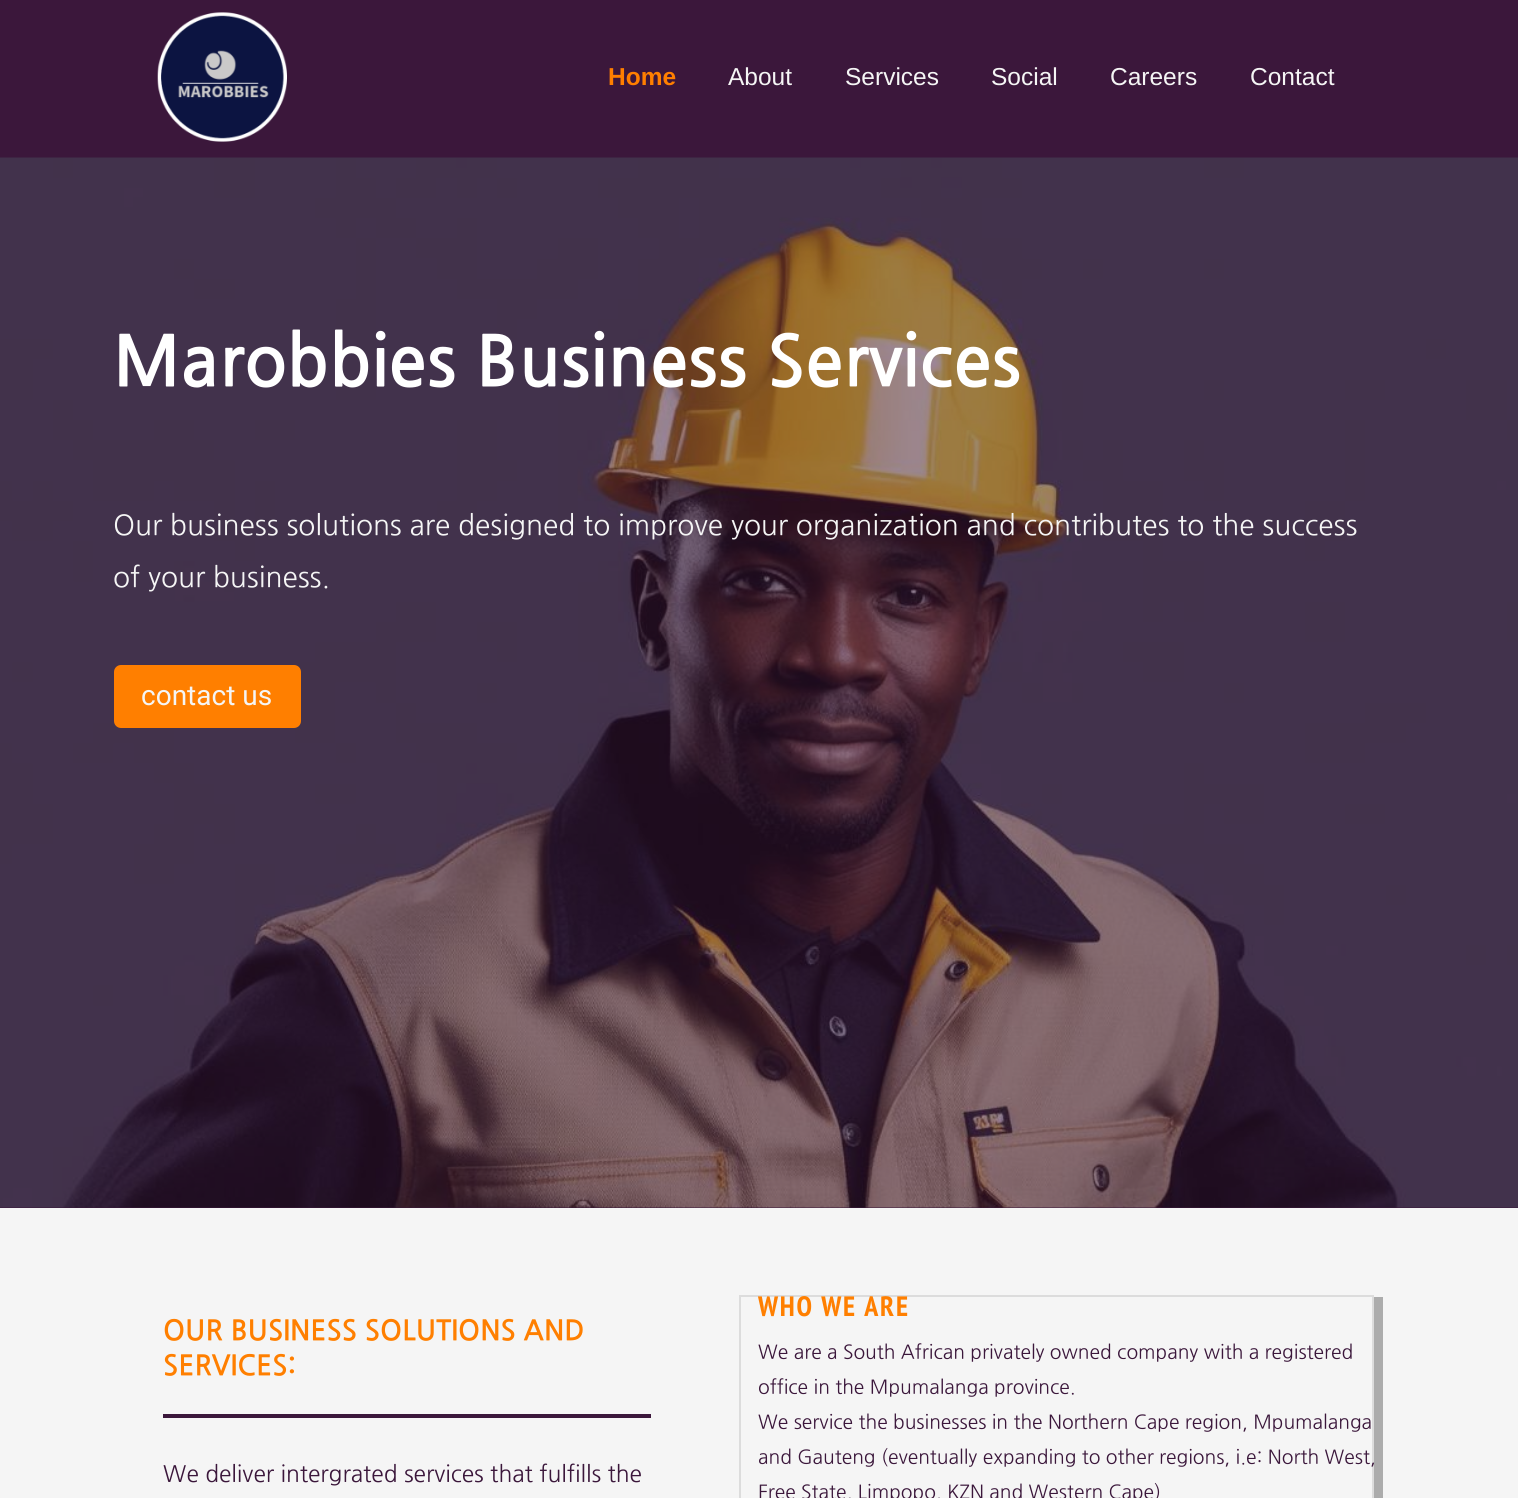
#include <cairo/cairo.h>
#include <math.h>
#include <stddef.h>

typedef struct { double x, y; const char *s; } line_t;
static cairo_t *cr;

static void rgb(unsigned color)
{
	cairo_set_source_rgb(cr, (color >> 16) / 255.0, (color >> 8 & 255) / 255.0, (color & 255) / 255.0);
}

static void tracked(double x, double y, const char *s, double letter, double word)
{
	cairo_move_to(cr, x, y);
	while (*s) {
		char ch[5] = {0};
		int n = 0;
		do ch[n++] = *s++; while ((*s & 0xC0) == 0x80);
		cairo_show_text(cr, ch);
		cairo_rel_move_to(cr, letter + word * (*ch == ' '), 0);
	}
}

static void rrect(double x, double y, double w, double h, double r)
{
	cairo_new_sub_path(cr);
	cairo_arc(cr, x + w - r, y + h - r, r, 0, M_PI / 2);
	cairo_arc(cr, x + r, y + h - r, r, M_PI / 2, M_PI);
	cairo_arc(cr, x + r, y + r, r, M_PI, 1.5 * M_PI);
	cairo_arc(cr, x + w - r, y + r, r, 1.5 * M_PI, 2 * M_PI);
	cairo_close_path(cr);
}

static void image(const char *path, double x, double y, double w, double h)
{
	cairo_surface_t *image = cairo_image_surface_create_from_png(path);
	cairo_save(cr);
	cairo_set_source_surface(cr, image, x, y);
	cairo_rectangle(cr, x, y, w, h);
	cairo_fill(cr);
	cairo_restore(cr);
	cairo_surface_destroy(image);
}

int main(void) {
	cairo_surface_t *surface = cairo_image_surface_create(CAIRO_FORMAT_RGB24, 1518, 1498);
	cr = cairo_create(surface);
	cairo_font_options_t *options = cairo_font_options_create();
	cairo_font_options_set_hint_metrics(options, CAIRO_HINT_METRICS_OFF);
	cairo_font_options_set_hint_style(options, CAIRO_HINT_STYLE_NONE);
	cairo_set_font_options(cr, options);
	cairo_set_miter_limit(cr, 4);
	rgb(0x3b173b);
	cairo_paint(cr);
	image("img/1.png", 157, 12, 130, 130);
	image("img/2.png", 0, 157, 1518, 1051);
	rgb(0xff7f00);
	rrect(114, 665, 187, 63, 7);
	cairo_fill(cr);
	rgb(0xf5f5f5);
	cairo_rectangle(cr, 0, 1208, 1518, 290);
	cairo_fill(cr);
	rgb(0x3b173b);
	cairo_rectangle(cr, 163, 1414, 488, 4);
	cairo_fill(cr);
	rgb(0xacacac);
	cairo_new_path(cr);
	cairo_move_to(cr, 740, 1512);
	cairo_line_to(cr, 740, 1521);
	cairo_line_to(cr, 1383, 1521);
	cairo_line_to(cr, 1383, 1297);
	cairo_line_to(cr, 1374, 1297);
	cairo_line_to(cr, 1374, 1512);
	cairo_close_path(cr);
	cairo_fill(cr);
	cairo_rectangle(cr, 740, 1296, 633, 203);
	rgb(0xdcdcdc);
	cairo_stroke(cr);
	cairo_select_font_face(cr, "Liberation Sans", CAIRO_FONT_SLANT_NORMAL, CAIRO_FONT_WEIGHT_BOLD);
	cairo_set_font_size(cr, 24.5);
	rgb(0xff7f00);
	cairo_move_to(cr, 608, 85);
	cairo_show_text(cr, "Home");
	cairo_select_font_face(cr, "Liberation Sans", CAIRO_FONT_SLANT_NORMAL, CAIRO_FONT_WEIGHT_NORMAL);
	rgb(0xf5f5f5);
	{
		static const line_t items[] = {
			{728, 85, "About"},
			{845, 85, "Services"},
			{991, 85, "Social"},
			{1110, 85, "Careers"},
			{1250, 85, "Contact"},
		};
		for (size_t i = 0; i < sizeof items / sizeof *items; i++) {
			cairo_move_to(cr, items[i].x, items[i].y);
			cairo_show_text(cr, items[i].s);
		}
	}
	cairo_select_font_face(cr, "NanumGothic", CAIRO_FONT_SLANT_NORMAL, CAIRO_FONT_WEIGHT_BOLD);
	cairo_set_font_size(cr, 70);
	rgb(0xffffff);
	cairo_move_to(cr, 113, 383);
	cairo_show_text(cr, "Marobbies Business Services");
	cairo_select_font_face(cr, "NanumGothic", CAIRO_FONT_SLANT_NORMAL, CAIRO_FONT_WEIGHT_NORMAL);
	cairo_set_font_size(cr, 28);
	rgb(0xf5f5f5);
	cairo_move_to(cr, 113, 534);
	cairo_show_text(cr, "Our business solutions are designed to improve your organization and contributes to the success");
	cairo_move_to(cr, 113, 586);
	cairo_show_text(cr, "of your business.");
	cairo_select_font_face(cr, "Roboto", CAIRO_FONT_SLANT_NORMAL, CAIRO_FONT_WEIGHT_NORMAL);
	cairo_move_to(cr, 141, 705);
	cairo_show_text(cr, "contact us");
	cairo_select_font_face(cr, "NanumGothic", CAIRO_FONT_SLANT_NORMAL, CAIRO_FONT_WEIGHT_BOLD);
	rgb(0xff7f00);
	cairo_move_to(cr, 163, 1339);
	cairo_show_text(cr, "OUR BUSINESS SOLUTIONS AND");
	cairo_move_to(cr, 163, 1374);
	cairo_show_text(cr, "SERVICES:");
	cairo_select_font_face(cr, "NanumGothic", CAIRO_FONT_SLANT_NORMAL, CAIRO_FONT_WEIGHT_NORMAL);
	cairo_set_font_size(cr, 22.75);
	rgb(0x3b173b);
	cairo_move_to(cr, 163, 1481);
	cairo_show_text(cr, "We deliver intergrated services that fulfills the");
	cairo_select_font_face(cr, "PT Sans Narrow", CAIRO_FONT_SLANT_NORMAL, CAIRO_FONT_WEIGHT_BOLD);
	cairo_set_font_size(cr, 28);
	rgb(0xff7f00);
	tracked(758, 1316, "WHO WE ARE", 1.75, 0);
	cairo_select_font_face(cr, "NanumGothic", CAIRO_FONT_SLANT_NORMAL, CAIRO_FONT_WEIGHT_NORMAL);
	cairo_set_font_size(cr, 19.25);
	rgb(0x3b173b);
	{
		static const line_t items[] = {
			{758, 1358, "We are a South African privately owned company with a registered"},
			{758, 1393, "office in the Mpumalanga province."},
			{758, 1428, "We service the businesses in the Northern Cape region, Mpumalanga"},
			{758, 1463, "and Gauteng (eventually expanding to other regions, i.e: North West,"},
			{758, 1498, "Free State, Limpopo, KZN and Western Cape)"},
		};
		for (size_t i = 0; i < sizeof items / sizeof *items; i++) {
			cairo_move_to(cr, items[i].x, items[i].y);
			cairo_show_text(cr, items[i].s);
		}
	}
	cairo_surface_write_to_png(surface, "page.png");
	cairo_font_options_destroy(options);
	cairo_destroy(cr);
	cairo_surface_destroy(surface);
	return 0;
}
